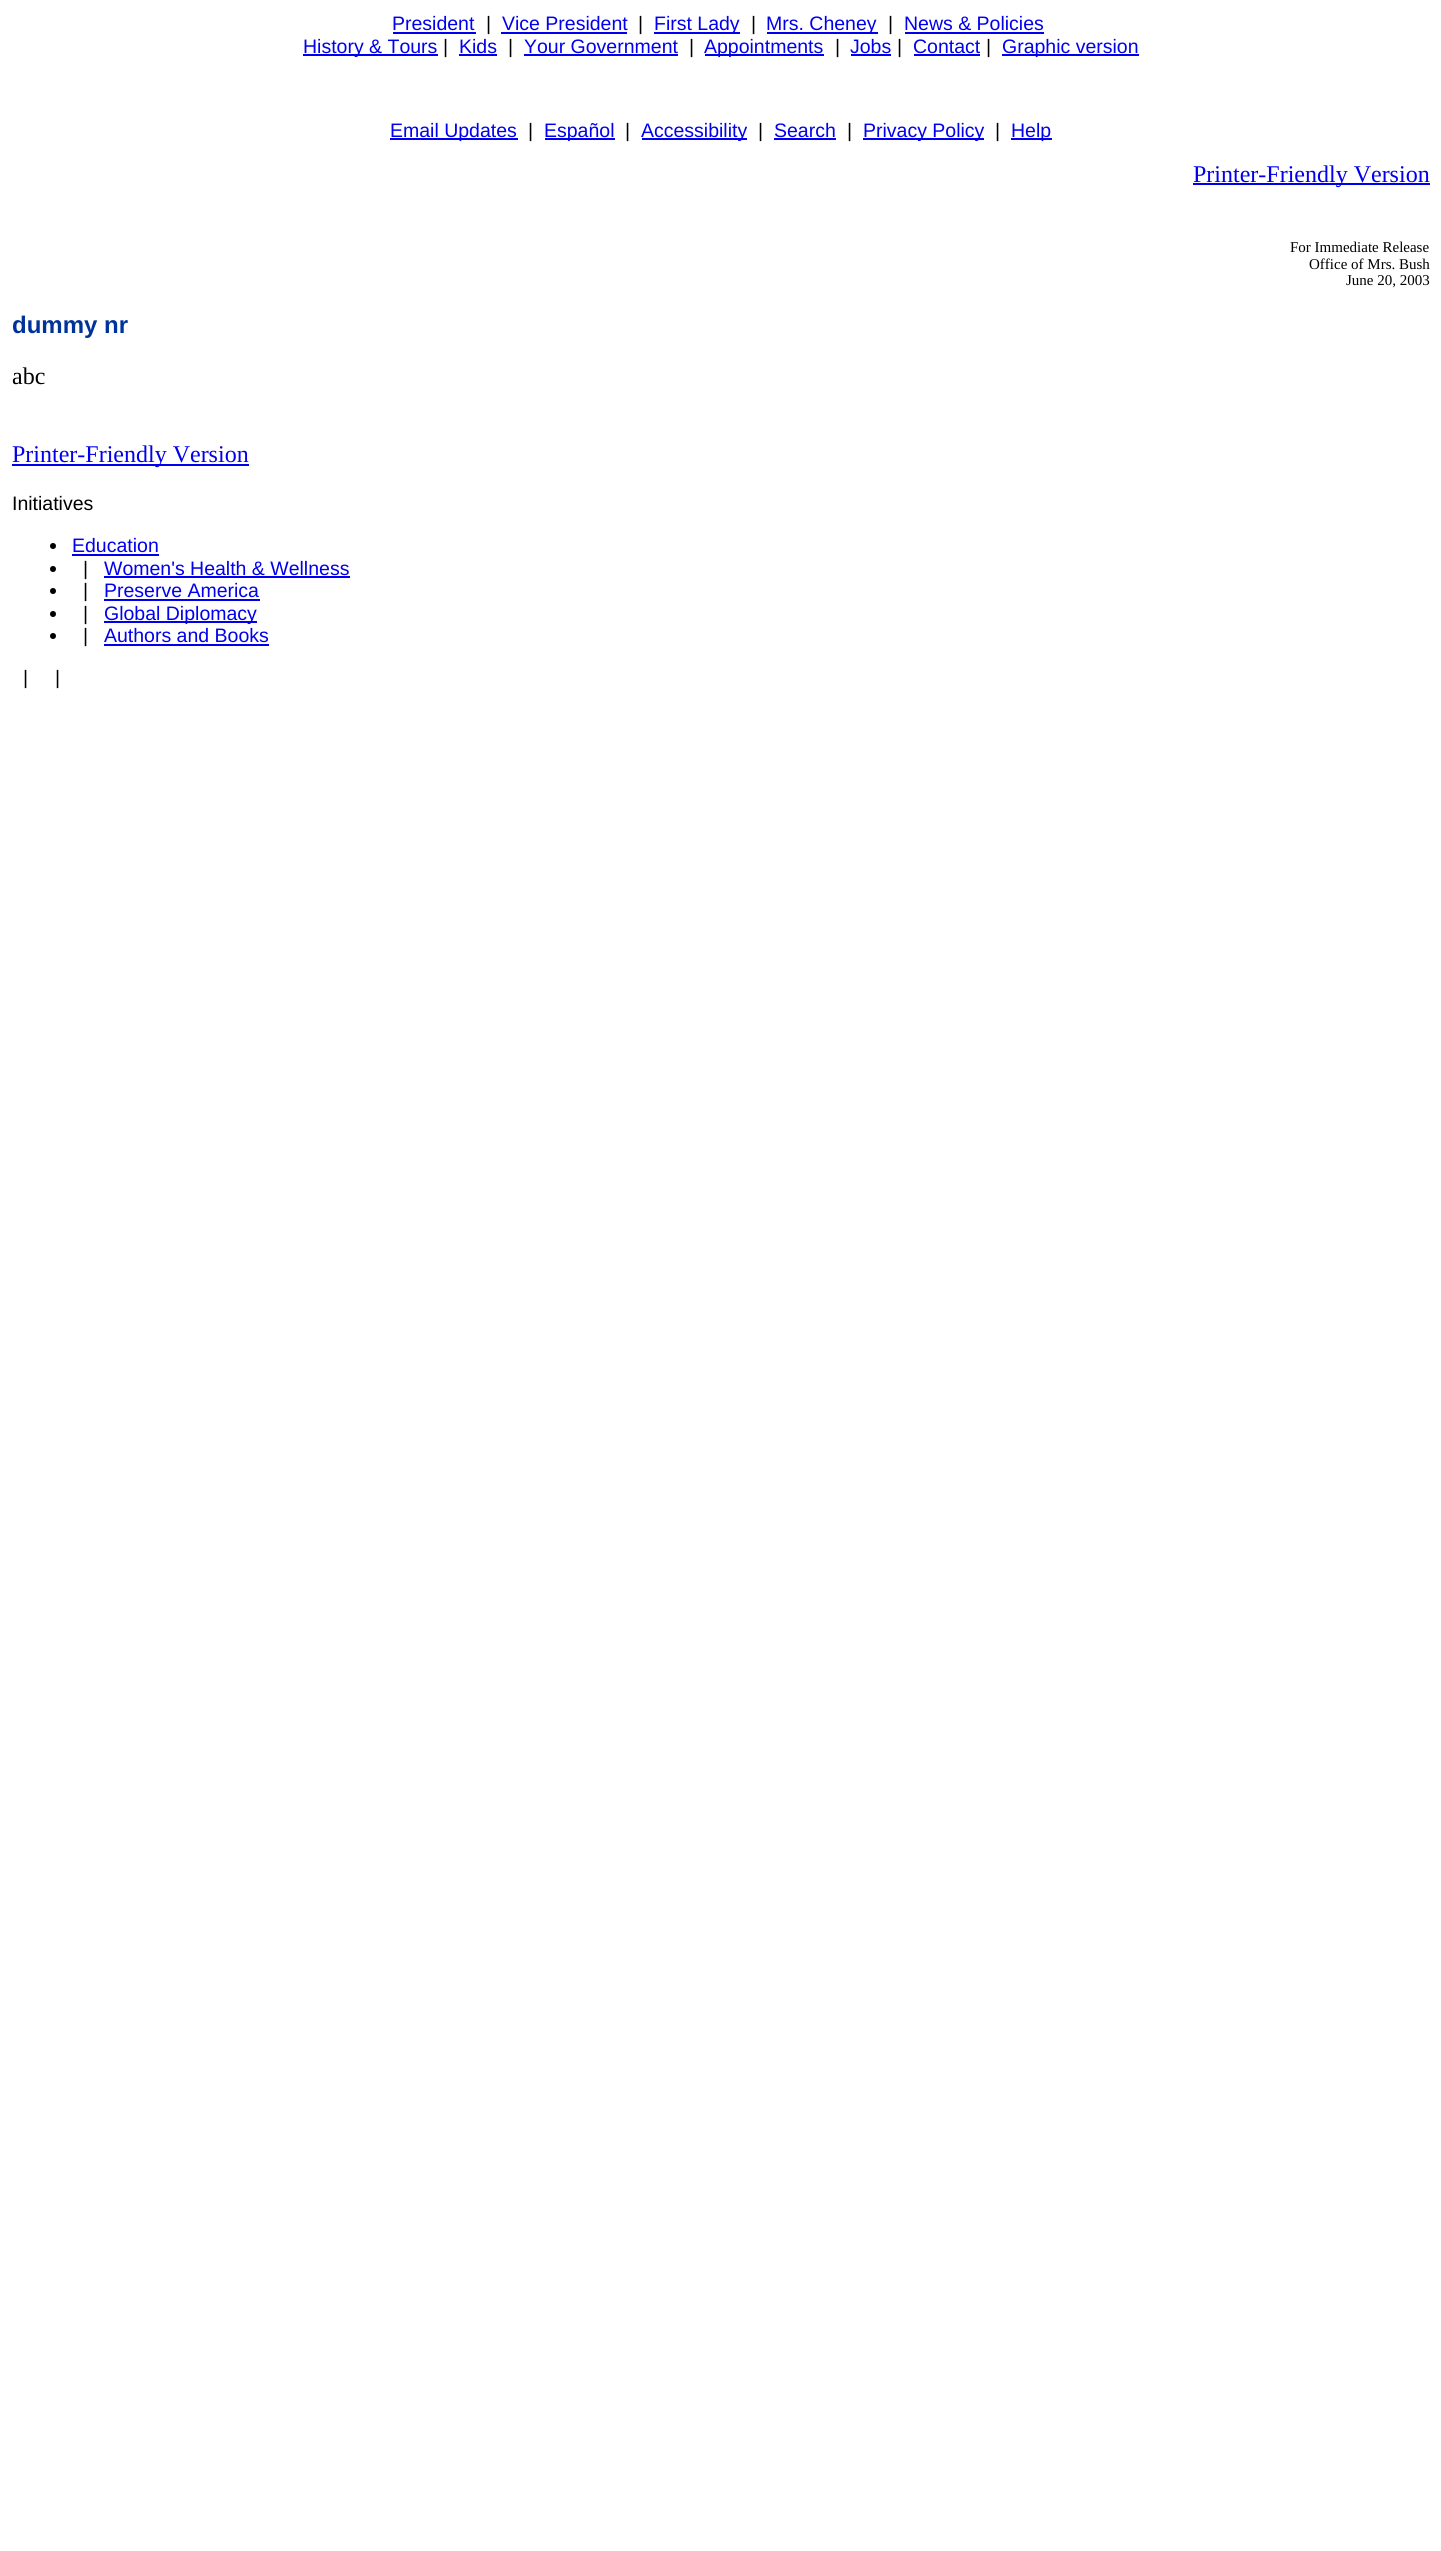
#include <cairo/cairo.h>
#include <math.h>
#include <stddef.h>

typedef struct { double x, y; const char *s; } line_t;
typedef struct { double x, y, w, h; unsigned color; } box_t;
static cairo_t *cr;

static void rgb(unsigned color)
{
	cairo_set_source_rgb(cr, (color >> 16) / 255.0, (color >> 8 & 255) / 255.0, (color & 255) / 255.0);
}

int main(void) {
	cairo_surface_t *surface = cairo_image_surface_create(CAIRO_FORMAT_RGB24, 1441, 2551);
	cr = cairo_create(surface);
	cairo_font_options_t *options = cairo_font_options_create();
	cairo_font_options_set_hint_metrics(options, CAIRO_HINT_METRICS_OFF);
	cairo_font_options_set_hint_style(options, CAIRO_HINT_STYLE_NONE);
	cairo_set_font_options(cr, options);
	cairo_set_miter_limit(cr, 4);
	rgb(0xffffff);
	cairo_paint(cr);
	{
		static const box_t items[] = {
			{393, 32, 83, 2, 0x0000ee},
			{501, 32, 126, 2, 0x0000ee},
			{654, 32, 86, 2, 0x0000ee},
			{767, 32, 111, 2, 0x0000ee},
			{905, 32, 139, 2, 0x0000ee},
			{303, 54, 135, 2, 0x0000ee},
			{459, 54, 38, 2, 0x0000ee},
			{524, 54, 154, 2, 0x0000ee},
			{705, 54, 119, 2, 0x0000ee},
			{851, 54, 40, 2, 0x0000ee},
			{914, 54, 66, 2, 0x0000ee},
			{1002, 54, 137, 2, 0x0000ee},
			{390, 138, 128, 2, 0x0000ee},
			{545, 138, 70, 2, 0x0000ee},
			{642, 138, 105, 2, 0x0000ee},
			{774, 138, 62, 2, 0x0000ee},
			{863, 138, 121, 2, 0x0000ee},
			{1011, 138, 41, 2, 0x0000ee},
			{1193, 183, 237, 2, 0x0000ee},
			{12, 464, 237, 2, 0x0000ee},
		};
		for (size_t i = 0; i < sizeof items / sizeof *items; i++) {
			rgb(items[i].color);
			cairo_rectangle(cr, items[i].x, items[i].y, items[i].w, items[i].h);
			cairo_fill(cr);
		}
	}
	rgb(0x000000);
	cairo_arc(cr, 53, 546, 3, 0, 2 * M_PI);
	cairo_fill(cr);
	rgb(0x0000ee);
	cairo_rectangle(cr, 72, 554, 87, 2);
	cairo_fill(cr);
	rgb(0x000000);
	cairo_arc(cr, 53, 569, 3, 0, 2 * M_PI);
	cairo_fill(cr);
	rgb(0x0000ee);
	cairo_rectangle(cr, 104, 576, 246, 2);
	cairo_fill(cr);
	rgb(0x000000);
	cairo_arc(cr, 53, 591, 3, 0, 2 * M_PI);
	cairo_fill(cr);
	rgb(0x0000ee);
	cairo_rectangle(cr, 104, 599, 156, 2);
	cairo_fill(cr);
	rgb(0x000000);
	cairo_arc(cr, 53, 614, 3, 0, 2 * M_PI);
	cairo_fill(cr);
	rgb(0x0000ee);
	cairo_rectangle(cr, 104, 621, 153, 2);
	cairo_fill(cr);
	rgb(0x000000);
	cairo_arc(cr, 53, 636, 3, 0, 2 * M_PI);
	cairo_fill(cr);
	rgb(0x0000ee);
	cairo_rectangle(cr, 104, 644, 165, 2);
	cairo_fill(cr);
	cairo_select_font_face(cr, "Liberation Sans", CAIRO_FONT_SLANT_NORMAL, CAIRO_FONT_WEIGHT_NORMAL);
	cairo_set_font_size(cr, 19.5);
	cairo_move_to(cr, 392, 30);
	cairo_show_text(cr, "President");
	rgb(0x000000);
	cairo_move_to(cr, 486, 30);
	cairo_show_text(cr, "|");
	rgb(0x0000ee);
	cairo_move_to(cr, 502, 30);
	cairo_show_text(cr, "Vice President");
	rgb(0x000000);
	cairo_move_to(cr, 638, 30);
	cairo_show_text(cr, "|");
	rgb(0x0000ee);
	cairo_move_to(cr, 654, 30);
	cairo_show_text(cr, "First Lady");
	rgb(0x000000);
	cairo_move_to(cr, 751, 30);
	cairo_show_text(cr, "|");
	rgb(0x0000ee);
	cairo_move_to(cr, 766, 30);
	cairo_show_text(cr, "Mrs. Cheney");
	rgb(0x000000);
	cairo_move_to(cr, 888, 30);
	cairo_show_text(cr, "|");
	rgb(0x0000ee);
	cairo_move_to(cr, 904, 30);
	cairo_show_text(cr, "News & Policies");
	cairo_move_to(cr, 303, 53);
	cairo_show_text(cr, "History & Tours");
	rgb(0x000000);
	cairo_move_to(cr, 443, 53);
	cairo_show_text(cr, "|");
	rgb(0x0000ee);
	cairo_move_to(cr, 459, 53);
	cairo_show_text(cr, "Kids");
	rgb(0x000000);
	cairo_move_to(cr, 508, 53);
	cairo_show_text(cr, "|");
	rgb(0x0000ee);
	cairo_move_to(cr, 524, 53);
	cairo_show_text(cr, "Your Government");
	rgb(0x000000);
	cairo_move_to(cr, 689, 53);
	cairo_show_text(cr, "|");
	rgb(0x0000ee);
	cairo_move_to(cr, 704, 53);
	cairo_show_text(cr, "Appointments");
	rgb(0x000000);
	cairo_move_to(cr, 835, 53);
	cairo_show_text(cr, "|");
	rgb(0x0000ee);
	cairo_move_to(cr, 850, 53);
	cairo_show_text(cr, "Jobs");
	rgb(0x000000);
	cairo_move_to(cr, 897, 53);
	cairo_show_text(cr, "|");
	rgb(0x0000ee);
	cairo_move_to(cr, 913, 53);
	cairo_show_text(cr, "Contact");
	rgb(0x000000);
	cairo_move_to(cr, 986, 53);
	cairo_show_text(cr, "|");
	rgb(0x0000ee);
	cairo_move_to(cr, 1002, 53);
	cairo_show_text(cr, "Graphic version");
	cairo_move_to(cr, 390, 137);
	cairo_show_text(cr, "Email Updates");
	rgb(0x000000);
	cairo_move_to(cr, 528, 137);
	cairo_show_text(cr, "|");
	rgb(0x0000ee);
	cairo_move_to(cr, 544, 137);
	cairo_show_text(cr, "Español");
	rgb(0x000000);
	cairo_move_to(cr, 625, 137);
	cairo_show_text(cr, "|");
	rgb(0x0000ee);
	cairo_move_to(cr, 641, 137);
	cairo_show_text(cr, "Accessibility");
	rgb(0x000000);
	cairo_move_to(cr, 758, 137);
	cairo_show_text(cr, "|");
	rgb(0x0000ee);
	cairo_move_to(cr, 774, 137);
	cairo_show_text(cr, "Search");
	rgb(0x000000);
	cairo_move_to(cr, 847, 137);
	cairo_show_text(cr, "|");
	rgb(0x0000ee);
	cairo_move_to(cr, 863, 137);
	cairo_show_text(cr, "Privacy Policy");
	rgb(0x000000);
	cairo_move_to(cr, 995, 137);
	cairo_show_text(cr, "|");
	rgb(0x0000ee);
	cairo_move_to(cr, 1011, 137);
	cairo_show_text(cr, "Help");
	cairo_select_font_face(cr, "Liberation Serif", CAIRO_FONT_SLANT_NORMAL, CAIRO_FONT_WEIGHT_NORMAL);
	cairo_set_font_size(cr, 24);
	cairo_move_to(cr, 1193, 182);
	cairo_show_text(cr, "Printer-Friendly Version");
	cairo_set_font_size(cr, 15);
	rgb(0x000000);
	{
		static const line_t items[] = {
			{1290, 252, "For Immediate Release"},
			{1309, 269, "Office of Mrs. Bush"},
			{1346, 285, "June 20, 2003"},
		};
		for (size_t i = 0; i < sizeof items / sizeof *items; i++) {
			cairo_move_to(cr, items[i].x, items[i].y);
			cairo_show_text(cr, items[i].s);
		}
	}
	cairo_select_font_face(cr, "Liberation Sans", CAIRO_FONT_SLANT_NORMAL, CAIRO_FONT_WEIGHT_BOLD);
	cairo_set_font_size(cr, 24);
	rgb(0x003399);
	cairo_move_to(cr, 12, 333);
	cairo_show_text(cr, "dummy nr");
	cairo_select_font_face(cr, "Liberation Serif", CAIRO_FONT_SLANT_NORMAL, CAIRO_FONT_WEIGHT_NORMAL);
	rgb(0x000000);
	cairo_move_to(cr, 12, 384);
	cairo_show_text(cr, "abc");
	rgb(0x0000ee);
	cairo_move_to(cr, 12, 462);
	cairo_show_text(cr, "Printer-Friendly Version");
	cairo_select_font_face(cr, "Liberation Sans", CAIRO_FONT_SLANT_NORMAL, CAIRO_FONT_WEIGHT_NORMAL);
	cairo_set_font_size(cr, 19.5);
	rgb(0x000000);
	cairo_move_to(cr, 12, 510);
	cairo_show_text(cr, "Initiatives");
	rgb(0x0000ee);
	cairo_move_to(cr, 72, 552);
	cairo_show_text(cr, "Education");
	rgb(0x000000);
	cairo_move_to(cr, 83, 575);
	cairo_show_text(cr, "|");
	rgb(0x0000ee);
	cairo_move_to(cr, 104, 575);
	cairo_show_text(cr, "Women's Health & Wellness");
	rgb(0x000000);
	cairo_move_to(cr, 83, 597);
	cairo_show_text(cr, "|");
	rgb(0x0000ee);
	cairo_move_to(cr, 104, 597);
	cairo_show_text(cr, "Preserve America");
	rgb(0x000000);
	cairo_move_to(cr, 83, 620);
	cairo_show_text(cr, "|");
	rgb(0x0000ee);
	cairo_move_to(cr, 104, 620);
	cairo_show_text(cr, "Global Diplomacy");
	rgb(0x000000);
	cairo_move_to(cr, 83, 642);
	cairo_show_text(cr, "|");
	rgb(0x0000ee);
	cairo_move_to(cr, 104, 642);
	cairo_show_text(cr, "Authors and Books");
	rgb(0x000000);
	cairo_move_to(cr, 23, 684);
	cairo_show_text(cr, "|");
	cairo_move_to(cr, 55, 684);
	cairo_show_text(cr, "|");
	cairo_surface_write_to_png(surface, "page.png");
	cairo_font_options_destroy(options);
	cairo_destroy(cr);
	cairo_surface_destroy(surface);
	return 0;
}
